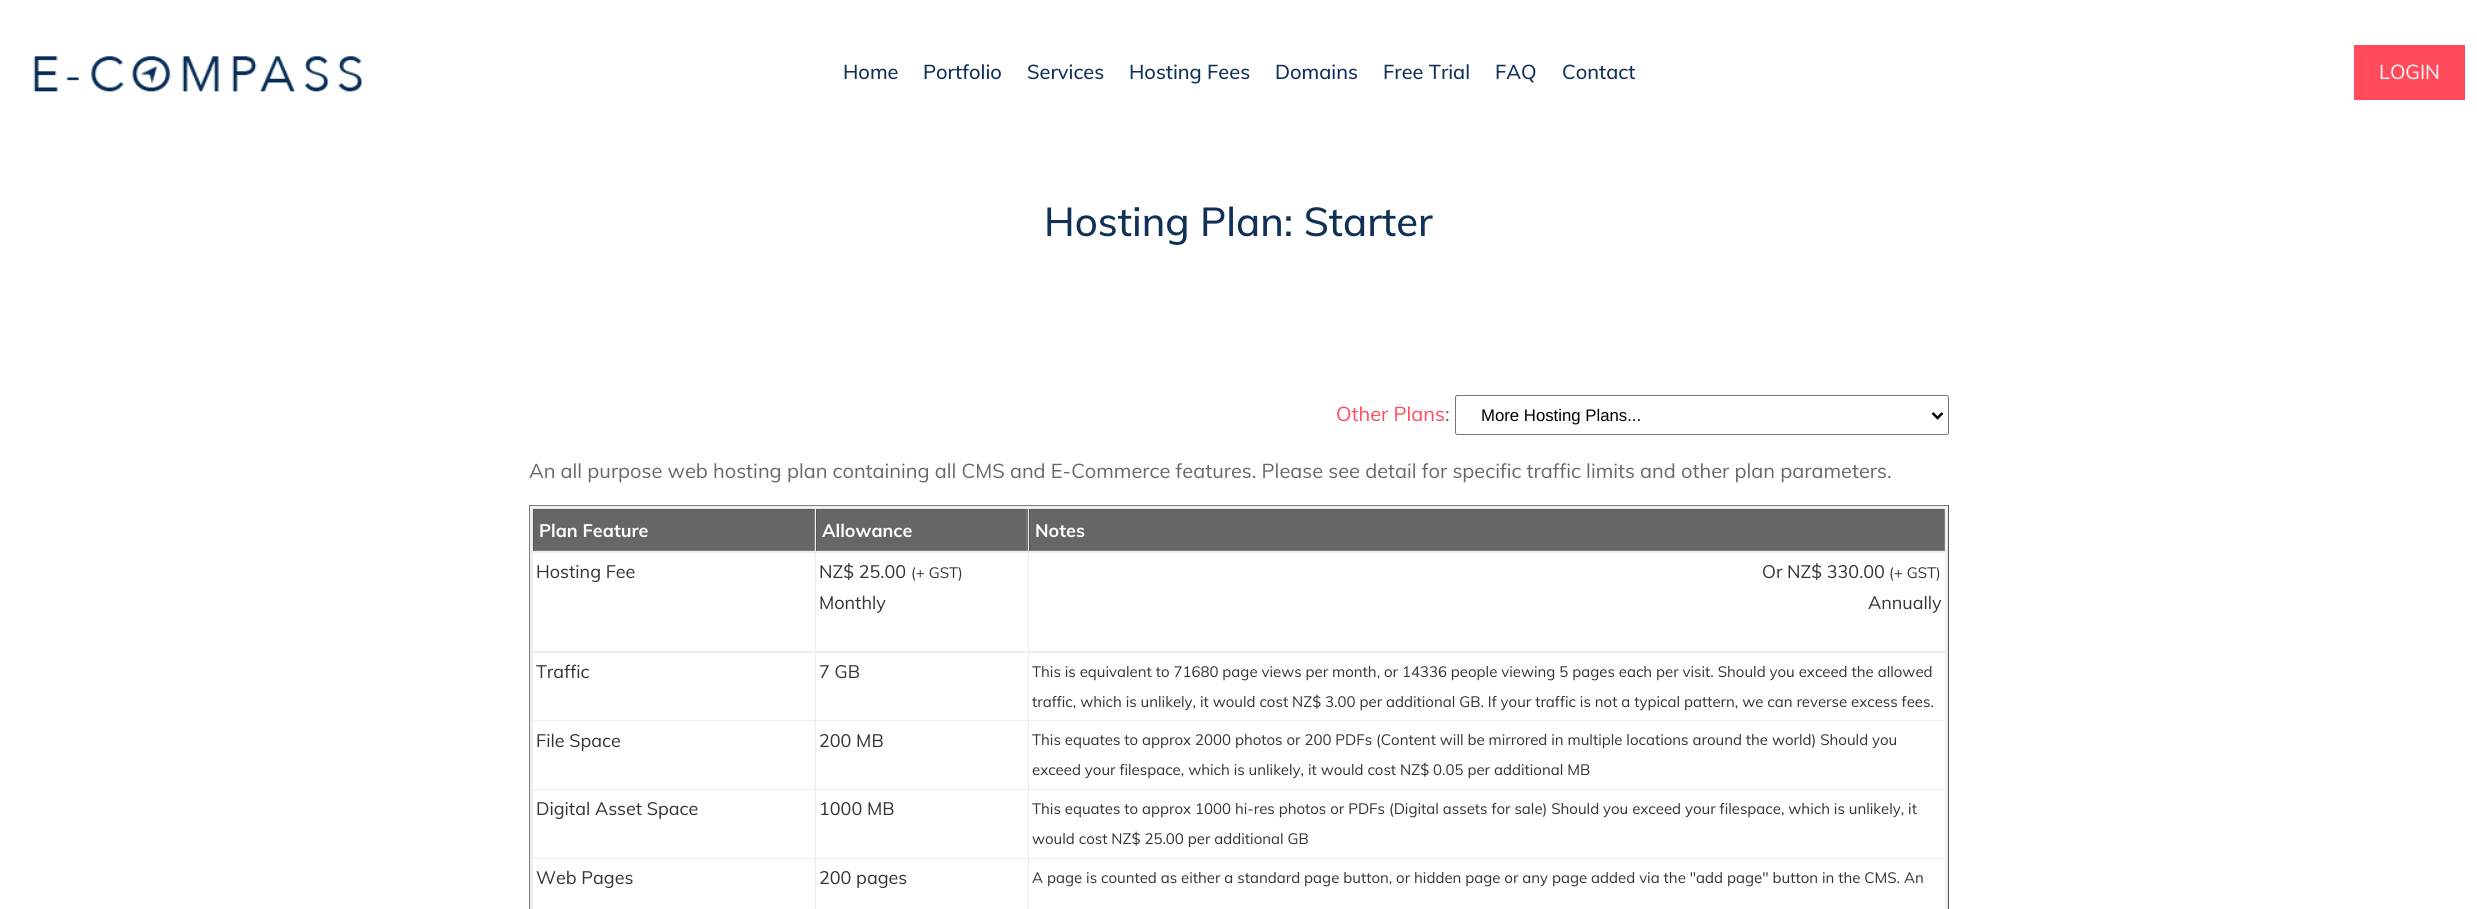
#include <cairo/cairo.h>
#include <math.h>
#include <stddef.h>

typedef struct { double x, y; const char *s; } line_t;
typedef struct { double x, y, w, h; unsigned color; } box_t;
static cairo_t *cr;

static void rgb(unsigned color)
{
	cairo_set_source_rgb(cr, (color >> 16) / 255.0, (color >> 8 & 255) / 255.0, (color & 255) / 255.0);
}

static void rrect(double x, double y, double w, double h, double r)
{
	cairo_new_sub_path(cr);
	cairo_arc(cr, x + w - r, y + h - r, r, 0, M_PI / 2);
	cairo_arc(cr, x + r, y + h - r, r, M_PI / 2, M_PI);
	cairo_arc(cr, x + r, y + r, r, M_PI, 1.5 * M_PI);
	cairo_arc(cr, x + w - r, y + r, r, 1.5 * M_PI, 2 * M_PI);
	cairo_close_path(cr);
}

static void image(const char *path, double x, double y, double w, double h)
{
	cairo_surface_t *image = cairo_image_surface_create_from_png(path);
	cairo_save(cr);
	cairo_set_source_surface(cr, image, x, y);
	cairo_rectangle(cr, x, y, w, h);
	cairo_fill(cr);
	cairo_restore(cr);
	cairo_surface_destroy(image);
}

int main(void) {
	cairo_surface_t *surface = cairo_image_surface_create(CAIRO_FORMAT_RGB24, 2477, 909);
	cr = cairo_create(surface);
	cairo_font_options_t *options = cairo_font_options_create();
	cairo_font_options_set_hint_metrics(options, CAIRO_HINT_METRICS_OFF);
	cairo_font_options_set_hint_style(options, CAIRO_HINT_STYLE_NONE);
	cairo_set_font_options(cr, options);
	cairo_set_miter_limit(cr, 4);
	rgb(0xffffff);
	cairo_paint(cr);
	image("img/1.png", 33, 56, 330, 36);
	rgb(0xff4b5c);
	cairo_rectangle(cr, 2354, 45, 111, 55);
	cairo_fill(cr);
	rrect(1455.5, 395.5, 493, 39, 2);
	rgb(0x767676);
	cairo_set_line_width(cr, 1);
	cairo_stroke(cr);
	cairo_new_path(cr);
	cairo_move_to(cr, 1932.5, 413);
	cairo_line_to(cr, 1937.5, 418);
	cairo_line_to(cr, 1942.5, 413);
	rgb(0x000000);
	cairo_set_line_width(cr, 2.5);
	cairo_stroke(cr);
	{
		static const box_t items[] = {
			{530, 506, 1418, 403, 0xeeeeee},
			{529, 505, 1420, 1, 0x808080},
			{1948, 505, 1, 404, 0x555555},
			{529, 505, 1, 404, 0x808080},
			{534, 510, 280, 40, 0x666666},
			{533, 509, 282, 1, 0x555555},
			{814, 509, 1, 42, 0x808080},
			{533, 550, 282, 1, 0x808080},
			{533, 509, 1, 42, 0x555555},
			{817, 510, 211, 40, 0x666666},
			{816, 509, 212, 1, 0x555555},
			{1026, 509, 1, 42, 0x808080},
			{816, 550, 212, 1, 0x808080},
			{816, 509, 1, 42, 0x555555},
			{1030, 510, 914, 40, 0x666666},
			{1029, 509, 916, 1, 0x555555},
			{1944, 509, 1, 42, 0x808080},
			{1029, 550, 916, 1, 0x808080},
			{1029, 509, 1, 42, 0x555555},
			{533, 553, 282, 98, 0xffffff},
			{816, 553, 212, 98, 0xffffff},
			{1029, 553, 916, 98, 0xffffff},
			{533, 653, 282, 67, 0xffffff},
			{816, 653, 212, 67, 0xffffff},
			{1029, 653, 916, 67, 0xffffff},
			{533, 721, 282, 68, 0xffffff},
			{816, 721, 212, 68, 0xffffff},
			{1029, 721, 916, 68, 0xffffff},
			{533, 790, 282, 68, 0xffffff},
			{816, 790, 212, 68, 0xffffff},
			{1029, 790, 916, 68, 0xffffff},
			{533, 859, 282, 50, 0xffffff},
			{816, 859, 212, 50, 0xffffff},
			{1029, 859, 916, 50, 0xffffff},
		};
		for (size_t i = 0; i < sizeof items / sizeof *items; i++) {
			rgb(items[i].color);
			cairo_rectangle(cr, items[i].x, items[i].y, items[i].w, items[i].h);
			cairo_fill(cr);
		}
	}
	cairo_select_font_face(cr, "Muli Medium", CAIRO_FONT_SLANT_NORMAL, CAIRO_FONT_WEIGHT_NORMAL);
	cairo_set_font_size(cr, 20);
	rgb(0x0f3057);
	{
		static const line_t items[] = {
			{843, 79, "Home"},
			{923, 79, "Portfolio"},
			{1027, 79, "Services"},
			{1129, 79, "Hosting Fees"},
			{1275, 79, "Domains"},
			{1383, 79, "Free Trial"},
			{1495, 79, "FAQ"},
			{1562, 79, "Contact"},
		};
		for (size_t i = 0; i < sizeof items / sizeof *items; i++) {
			cairo_move_to(cr, items[i].x, items[i].y);
			cairo_show_text(cr, items[i].s);
		}
	}
	cairo_select_font_face(cr, "Muli", CAIRO_FONT_SLANT_NORMAL, CAIRO_FONT_WEIGHT_NORMAL);
	rgb(0xffffff);
	cairo_move_to(cr, 2379, 79);
	cairo_show_text(cr, "LOGIN");
	cairo_select_font_face(cr, "Muli Medium", CAIRO_FONT_SLANT_NORMAL, CAIRO_FONT_WEIGHT_NORMAL);
	cairo_set_font_size(cr, 40);
	rgb(0x0f3057);
	cairo_move_to(cr, 1044, 236);
	cairo_show_text(cr, "Hosting Plan: Starter");
	cairo_select_font_face(cr, "Muli", CAIRO_FONT_SLANT_NORMAL, CAIRO_FONT_WEIGHT_NORMAL);
	cairo_set_font_size(cr, 20);
	rgb(0xff4b5c);
	cairo_move_to(cr, 1336, 421);
	cairo_show_text(cr, "Other Plans");
	rgb(0x686868);
	cairo_move_to(cr, 1445, 421);
	cairo_show_text(cr, ":");
	cairo_select_font_face(cr, "Liberation Sans", CAIRO_FONT_SLANT_NORMAL, CAIRO_FONT_WEIGHT_NORMAL);
	cairo_set_font_size(cr, 16.75);
	rgb(0x000000);
	cairo_move_to(cr, 1481, 421);
	cairo_show_text(cr, "More Hosting Plans...");
	cairo_select_font_face(cr, "Muli", CAIRO_FONT_SLANT_NORMAL, CAIRO_FONT_WEIGHT_NORMAL);
	cairo_set_font_size(cr, 20);
	rgb(0x686868);
	cairo_move_to(cr, 529, 478);
	cairo_show_text(cr, "An all purpose web hosting plan containing all CMS and E-Commerce features. Please see detail for specific traffic limits and other plan parameters.");
	cairo_select_font_face(cr, "Muli", CAIRO_FONT_SLANT_NORMAL, CAIRO_FONT_WEIGHT_BOLD);
	cairo_set_font_size(cr, 18);
	rgb(0xffffff);
	{
		static const line_t items[] = {
			{539, 537, "Plan Feature"},
			{822, 537, "Allowance"},
			{1035, 537, "Notes"},
		};
		for (size_t i = 0; i < sizeof items / sizeof *items; i++) {
			cairo_move_to(cr, items[i].x, items[i].y);
			cairo_show_text(cr, items[i].s);
		}
	}
	cairo_select_font_face(cr, "Muli", CAIRO_FONT_SLANT_NORMAL, CAIRO_FONT_WEIGHT_NORMAL);
	rgb(0x333333);
	cairo_move_to(cr, 536, 578);
	cairo_show_text(cr, "Hosting Fee");
	cairo_move_to(cr, 819, 578);
	cairo_show_text(cr, "NZ$ 25.00");
	cairo_set_font_size(cr, 15);
	cairo_move_to(cr, 911, 578);
	cairo_show_text(cr, "(+ GST)");
	cairo_set_font_size(cr, 18);
	cairo_move_to(cr, 819, 609);
	cairo_show_text(cr, "Monthly");
	cairo_move_to(cr, 1762, 578);
	cairo_show_text(cr, "Or NZ$ 330.00");
	cairo_set_font_size(cr, 15);
	cairo_move_to(cr, 1889, 578);
	cairo_show_text(cr, "(+ GST)");
	cairo_set_font_size(cr, 18);
	{
		static const line_t items[] = {
			{1868, 609, "Annually"},
			{536, 678, "Traffic"},
			{819, 678, "7 GB"},
		};
		for (size_t i = 0; i < sizeof items / sizeof *items; i++) {
			cairo_move_to(cr, items[i].x, items[i].y);
			cairo_show_text(cr, items[i].s);
		}
	}
	cairo_set_font_size(cr, 15);
	cairo_move_to(cr, 1032, 677);
	cairo_show_text(cr, "This is equivalent to 71680 page views per month, or 14336 people viewing 5 pages each per visit. Should you exceed the allowed");
	cairo_move_to(cr, 1032, 707);
	cairo_show_text(cr, "traffic, which is unlikely, it would cost NZ$ 3.00 per additional GB. If your traffic is not a typical pattern, we can reverse excess fees.");
	cairo_set_font_size(cr, 18);
	cairo_move_to(cr, 536, 747);
	cairo_show_text(cr, "File Space");
	cairo_move_to(cr, 819, 747);
	cairo_show_text(cr, "200 MB");
	cairo_set_font_size(cr, 15);
	cairo_move_to(cr, 1032, 745);
	cairo_show_text(cr, "This equates to approx 2000 photos or 200 PDFs (Content will be mirrored in multiple locations around the world) Should you");
	cairo_move_to(cr, 1032, 775);
	cairo_show_text(cr, "exceed your filespace, which is unlikely, it would cost NZ$ 0.05 per additional MB");
	cairo_set_font_size(cr, 18);
	cairo_move_to(cr, 536, 815);
	cairo_show_text(cr, "Digital Asset Space");
	cairo_move_to(cr, 819, 815);
	cairo_show_text(cr, "1000 MB");
	cairo_set_font_size(cr, 15);
	cairo_move_to(cr, 1032, 814);
	cairo_show_text(cr, "This equates to approx 1000 hi-res photos or PDFs (Digital assets for sale) Should you exceed your filespace, which is unlikely, it");
	cairo_move_to(cr, 1032, 844);
	cairo_show_text(cr, "would cost NZ$ 25.00 per additional GB");
	cairo_set_font_size(cr, 18);
	cairo_move_to(cr, 536, 884);
	cairo_show_text(cr, "Web Pages");
	cairo_move_to(cr, 819, 884);
	cairo_show_text(cr, "200 pages");
	cairo_set_font_size(cr, 15);
	cairo_move_to(cr, 1032, 883);
	cairo_show_text(cr, "A page is counted as either a standard page button, or hidden page or any page added via the \"add page\" button in the CMS. An");
	cairo_surface_write_to_png(surface, "page.png");
	cairo_font_options_destroy(options);
	cairo_destroy(cr);
	cairo_surface_destroy(surface);
	return 0;
}
